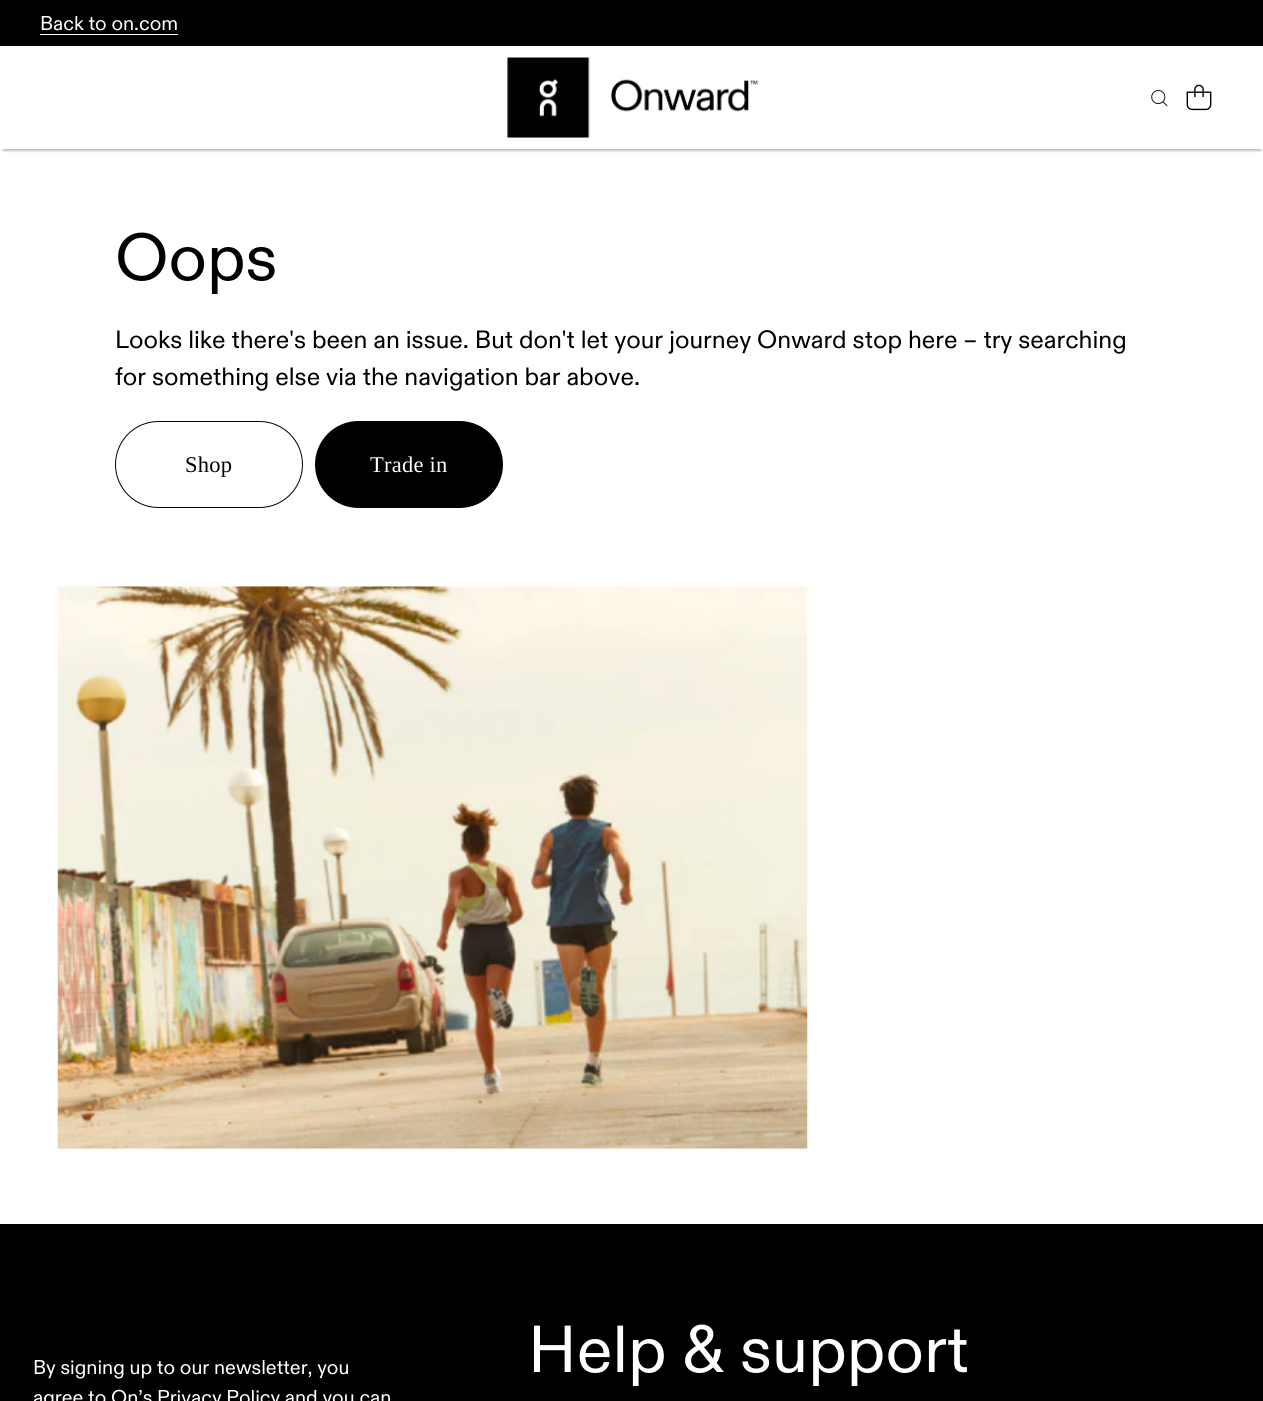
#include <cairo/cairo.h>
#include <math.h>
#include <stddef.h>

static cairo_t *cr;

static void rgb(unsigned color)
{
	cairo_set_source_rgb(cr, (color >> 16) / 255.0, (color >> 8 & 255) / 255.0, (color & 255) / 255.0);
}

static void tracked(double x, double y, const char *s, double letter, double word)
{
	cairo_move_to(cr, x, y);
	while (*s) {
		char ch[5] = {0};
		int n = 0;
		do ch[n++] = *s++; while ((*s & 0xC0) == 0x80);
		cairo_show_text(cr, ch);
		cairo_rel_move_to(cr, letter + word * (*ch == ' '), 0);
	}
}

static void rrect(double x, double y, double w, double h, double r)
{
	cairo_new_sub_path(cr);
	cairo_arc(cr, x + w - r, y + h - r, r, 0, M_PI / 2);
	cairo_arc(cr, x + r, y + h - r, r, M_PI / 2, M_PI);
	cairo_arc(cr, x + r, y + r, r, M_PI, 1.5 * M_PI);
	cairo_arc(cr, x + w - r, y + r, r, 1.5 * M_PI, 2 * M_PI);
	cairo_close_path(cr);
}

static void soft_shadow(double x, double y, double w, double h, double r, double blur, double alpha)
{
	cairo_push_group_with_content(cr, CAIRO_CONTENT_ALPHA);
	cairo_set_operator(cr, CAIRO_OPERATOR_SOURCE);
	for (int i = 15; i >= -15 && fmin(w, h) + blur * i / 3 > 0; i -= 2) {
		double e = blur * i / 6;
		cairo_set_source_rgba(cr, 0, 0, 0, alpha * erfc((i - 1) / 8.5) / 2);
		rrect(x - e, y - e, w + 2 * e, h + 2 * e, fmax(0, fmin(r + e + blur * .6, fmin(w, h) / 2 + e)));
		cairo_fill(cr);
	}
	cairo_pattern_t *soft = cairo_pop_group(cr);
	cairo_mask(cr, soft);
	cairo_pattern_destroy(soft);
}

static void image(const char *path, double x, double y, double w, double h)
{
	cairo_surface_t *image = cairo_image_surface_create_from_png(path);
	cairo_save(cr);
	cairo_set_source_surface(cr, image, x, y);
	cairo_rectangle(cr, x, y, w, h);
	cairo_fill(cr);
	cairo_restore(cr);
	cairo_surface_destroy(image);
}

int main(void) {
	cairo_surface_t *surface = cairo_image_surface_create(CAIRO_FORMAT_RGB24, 1263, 1401);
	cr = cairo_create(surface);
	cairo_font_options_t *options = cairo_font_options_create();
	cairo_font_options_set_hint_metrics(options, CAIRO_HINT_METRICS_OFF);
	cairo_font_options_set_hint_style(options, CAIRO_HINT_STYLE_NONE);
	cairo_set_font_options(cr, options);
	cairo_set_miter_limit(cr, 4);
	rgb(0xffffff);
	cairo_paint(cr);
	rgb(0x000000);
	cairo_rectangle(cr, 0, 0, 1263, 46);
	cairo_fill(cr);
	rgb(0xffffff);
	cairo_rectangle(cr, 40, 34, 138, 1);
	cairo_fill(cr);
	rgb(0x000000);
	soft_shadow(3, 54, 1258, 97, 0, 1, 0.25);
	rgb(0xffffff);
	cairo_rectangle(cr, 1, 52, 1262, 97);
	cairo_fill(cr);
	image("img/1.png", 507, 57, 251, 81);
	image("img/2.png", 1151, 90, 17, 17);
	image("img/3.png", 1186, 84, 26, 27);
	rrect(115.5, 421.5, 187, 86, 43);
	rgb(0x000000);
	cairo_set_line_width(cr, 1);
	cairo_stroke(cr);
	rrect(315, 421, 188, 87, 43.5);
	cairo_fill(cr);
	image("img/4.png", 57, 586, 751, 563);
	cairo_rectangle(cr, 0, 1224, 1263, 177);
	cairo_fill(cr);
	cairo_select_font_face(cr, "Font", CAIRO_FONT_SLANT_NORMAL, CAIRO_FONT_WEIGHT_NORMAL);
	cairo_set_font_size(cr, 20);
	rgb(0xffffff);
	cairo_move_to(cr, 40, 30);
	cairo_show_text(cr, "Back to on.com");
	cairo_set_font_size(cr, 66.25);
	rgb(0x000000);
	cairo_move_to(cr, 115, 280);
	cairo_show_text(cr, "Oops");
	cairo_set_font_size(cr, 25);
	cairo_move_to(cr, 115, 348);
	cairo_show_text(cr, "Looks like there's been an issue. But don't let your journey Onward stop here – try searching");
	cairo_move_to(cr, 115, 385);
	cairo_show_text(cr, "for something else via the navigation bar above.");
	cairo_select_font_face(cr, "Liberation Serif", CAIRO_FONT_SLANT_NORMAL, CAIRO_FONT_WEIGHT_NORMAL);
	cairo_set_font_size(cr, 22.5);
	tracked(185, 472, "Shop", 0.25, 0);
	rgb(0xffffff);
	tracked(370, 472, "Trade in", 0.25, 0);
	cairo_select_font_face(cr, "Font", CAIRO_FONT_SLANT_NORMAL, CAIRO_FONT_WEIGHT_NORMAL);
	cairo_set_font_size(cr, 20);
	cairo_move_to(cr, 33, 1374);
	cairo_show_text(cr, "By signing up to our newsletter, you");
	cairo_move_to(cr, 33, 1404);
	cairo_show_text(cr, "agree to On’s Privacy Policy and you can");
	cairo_set_font_size(cr, 66.25);
	cairo_move_to(cr, 528, 1372);
	cairo_show_text(cr, "Help & support");
	cairo_surface_write_to_png(surface, "page.png");
	cairo_font_options_destroy(options);
	cairo_destroy(cr);
	cairo_surface_destroy(surface);
	return 0;
}
